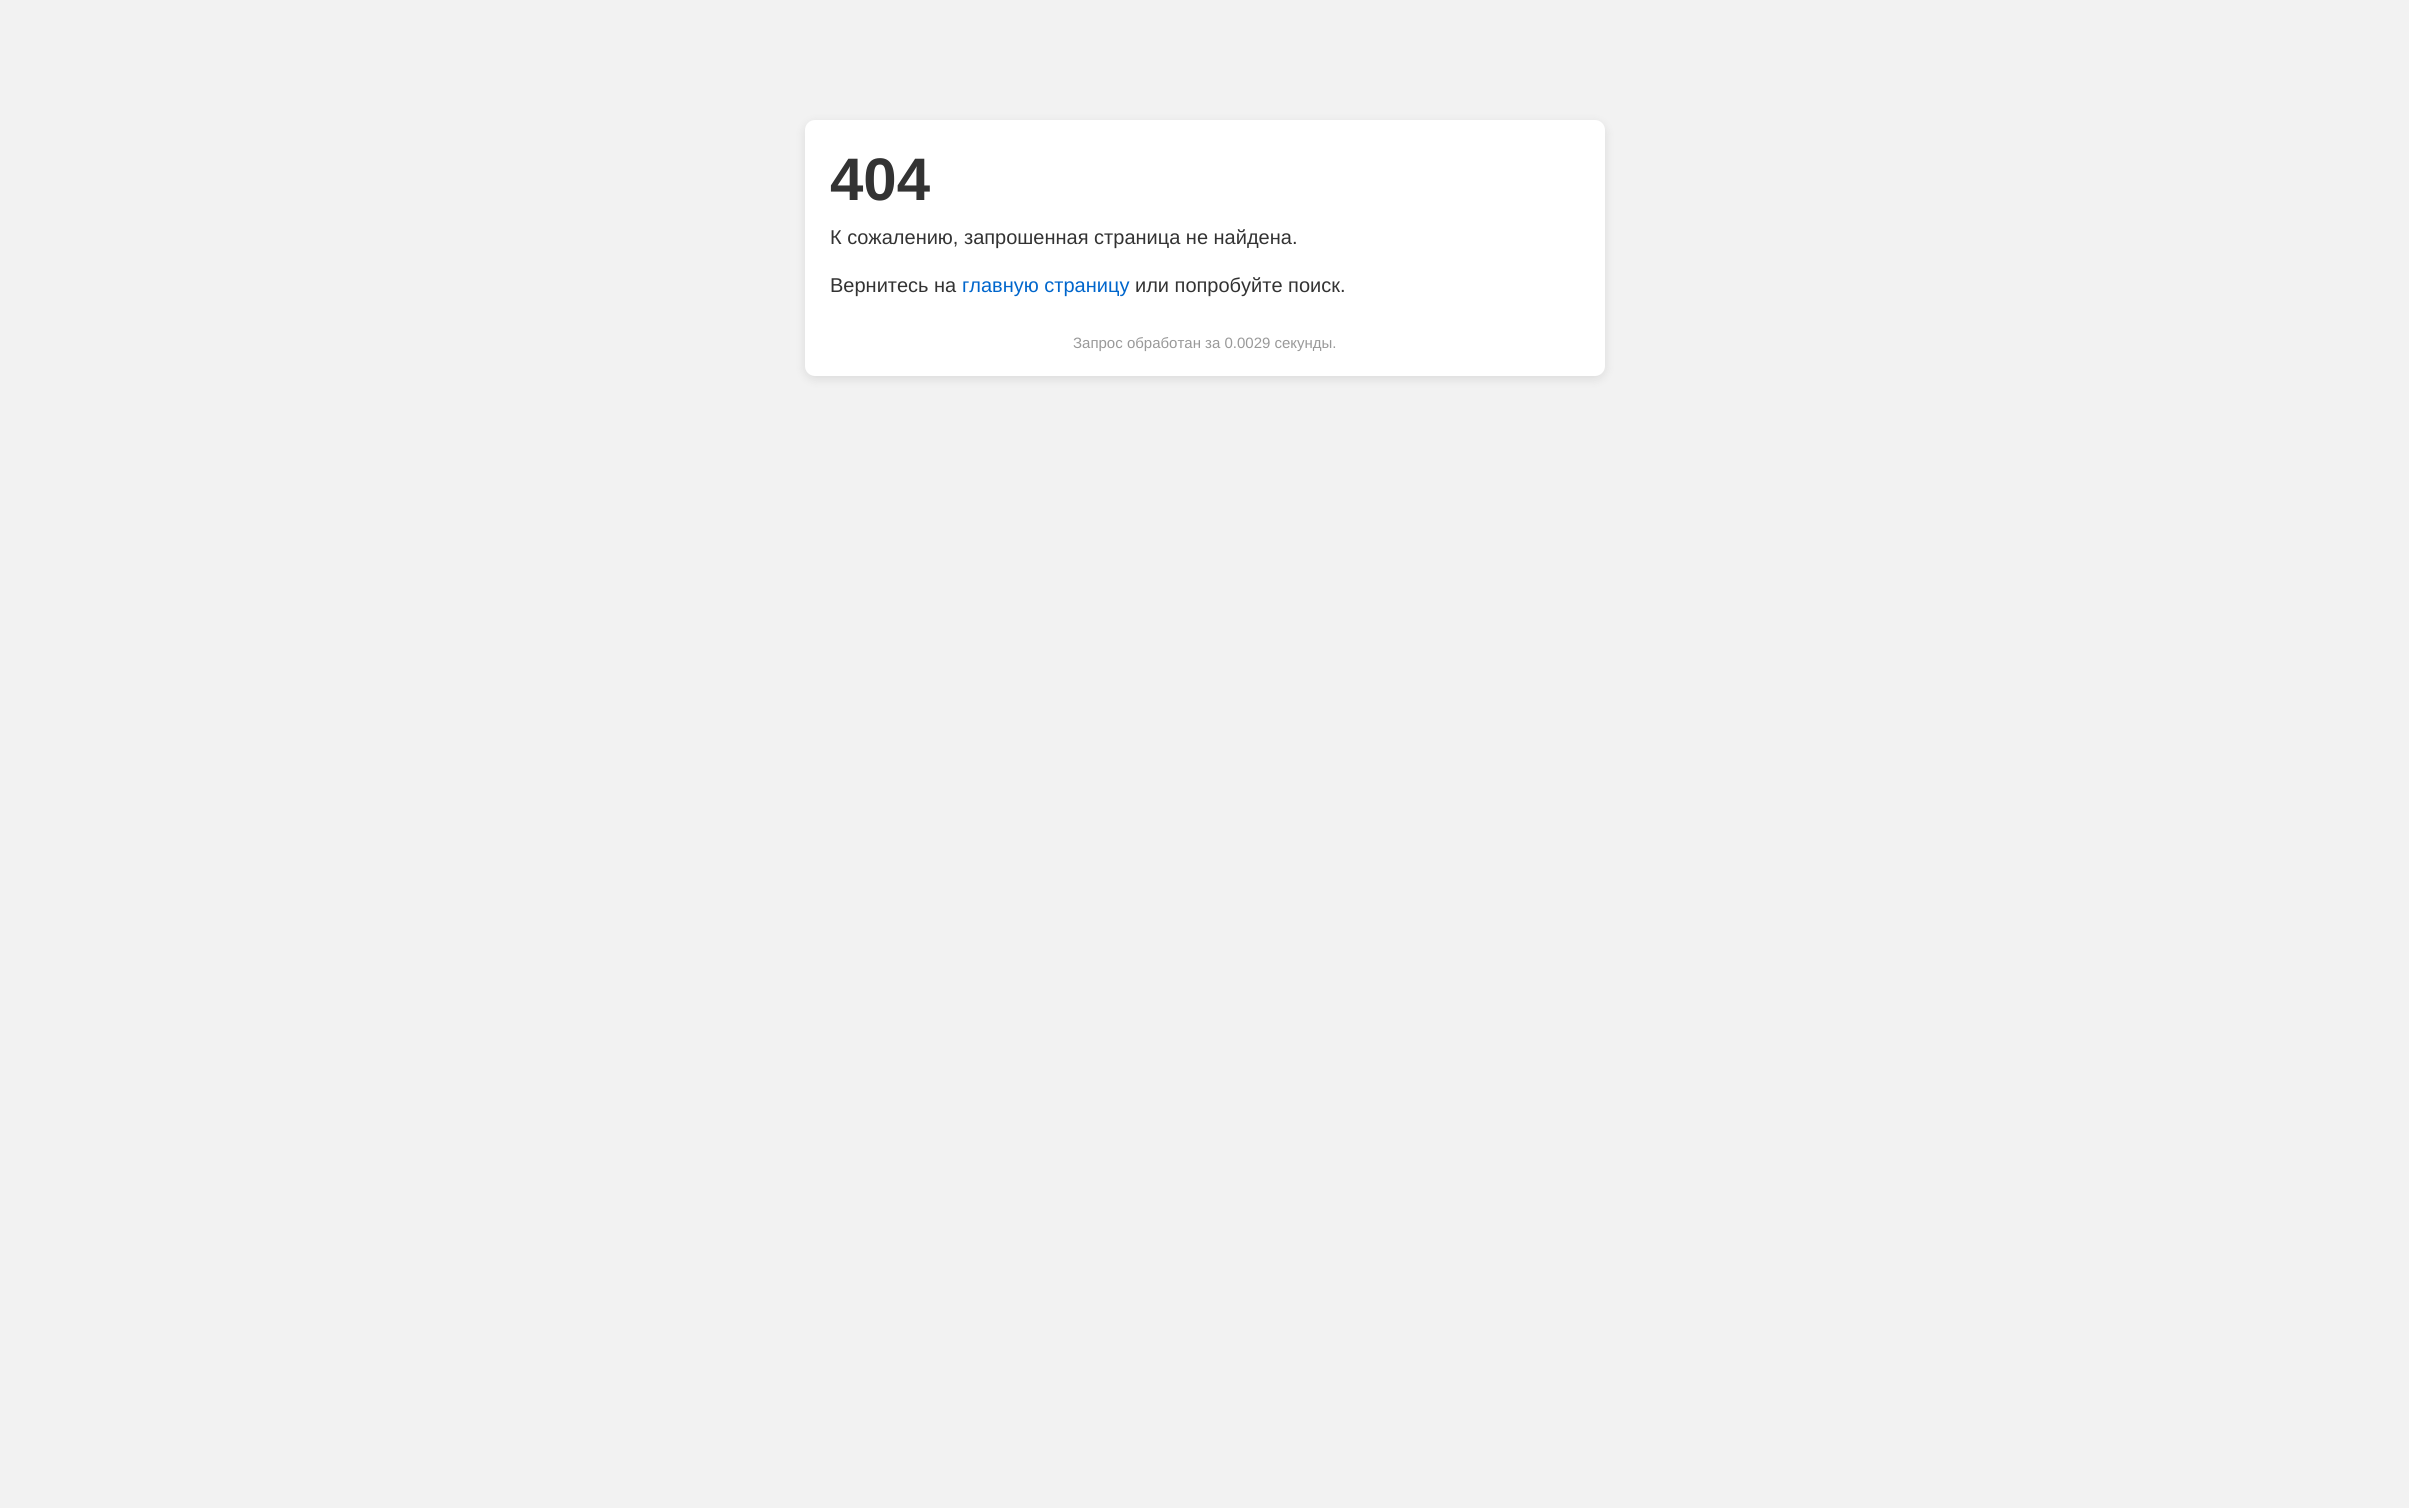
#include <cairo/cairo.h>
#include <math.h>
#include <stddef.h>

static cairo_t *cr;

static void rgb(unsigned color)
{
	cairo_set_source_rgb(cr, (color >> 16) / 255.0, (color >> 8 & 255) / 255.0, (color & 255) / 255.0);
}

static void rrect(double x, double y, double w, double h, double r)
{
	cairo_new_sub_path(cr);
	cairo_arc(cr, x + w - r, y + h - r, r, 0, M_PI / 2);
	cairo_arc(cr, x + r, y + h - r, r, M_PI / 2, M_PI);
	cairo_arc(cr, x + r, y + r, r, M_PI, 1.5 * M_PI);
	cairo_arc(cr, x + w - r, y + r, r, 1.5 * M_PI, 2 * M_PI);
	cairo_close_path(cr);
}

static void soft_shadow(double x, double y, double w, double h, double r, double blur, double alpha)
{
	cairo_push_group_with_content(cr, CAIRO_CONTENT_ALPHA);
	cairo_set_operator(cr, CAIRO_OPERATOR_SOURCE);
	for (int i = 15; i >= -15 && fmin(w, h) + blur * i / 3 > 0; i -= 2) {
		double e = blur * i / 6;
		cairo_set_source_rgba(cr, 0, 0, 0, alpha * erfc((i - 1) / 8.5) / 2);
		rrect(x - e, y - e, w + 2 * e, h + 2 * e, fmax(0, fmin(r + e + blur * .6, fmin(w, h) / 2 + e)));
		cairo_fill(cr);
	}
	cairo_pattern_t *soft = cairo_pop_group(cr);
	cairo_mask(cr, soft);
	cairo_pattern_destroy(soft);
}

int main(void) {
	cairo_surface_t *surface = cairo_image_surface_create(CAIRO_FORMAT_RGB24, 2409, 1508);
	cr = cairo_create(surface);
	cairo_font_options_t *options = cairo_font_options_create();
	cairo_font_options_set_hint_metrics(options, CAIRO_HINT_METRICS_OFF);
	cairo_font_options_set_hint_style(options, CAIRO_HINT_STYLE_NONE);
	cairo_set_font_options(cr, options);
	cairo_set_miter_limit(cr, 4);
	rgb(0xf2f2f2);
	cairo_paint(cr);
	rgb(0x000000);
	soft_shadow(805, 123, 800, 256, 10, 5, 0.1);
	rgb(0xffffff);
	rrect(805, 120, 800, 256, 10);
	cairo_fill(cr);
	cairo_select_font_face(cr, "Liberation Sans", CAIRO_FONT_SLANT_NORMAL, CAIRO_FONT_WEIGHT_BOLD);
	cairo_set_font_size(cr, 60);
	rgb(0x333333);
	cairo_move_to(cr, 830, 200);
	cairo_show_text(cr, "404");
	cairo_select_font_face(cr, "Liberation Sans", CAIRO_FONT_SLANT_NORMAL, CAIRO_FONT_WEIGHT_NORMAL);
	cairo_set_font_size(cr, 20);
	cairo_move_to(cr, 830, 244);
	cairo_show_text(cr, "К сожалению, запрошенная страница не найдена.");
	cairo_move_to(cr, 830, 292);
	cairo_show_text(cr, "Вернитесь на");
	rgb(0x0066cc);
	cairo_move_to(cr, 962, 292);
	cairo_show_text(cr, "главную страницу");
	rgb(0x333333);
	cairo_move_to(cr, 1135, 292);
	cairo_show_text(cr, "или попробуйте поиск.");
	cairo_set_font_size(cr, 15);
	rgb(0x999999);
	cairo_move_to(cr, 1073, 348);
	cairo_show_text(cr, "Запрос обработан за 0.0029 секунды.");
	cairo_surface_write_to_png(surface, "page.png");
	cairo_font_options_destroy(options);
	cairo_destroy(cr);
	cairo_surface_destroy(surface);
	return 0;
}
